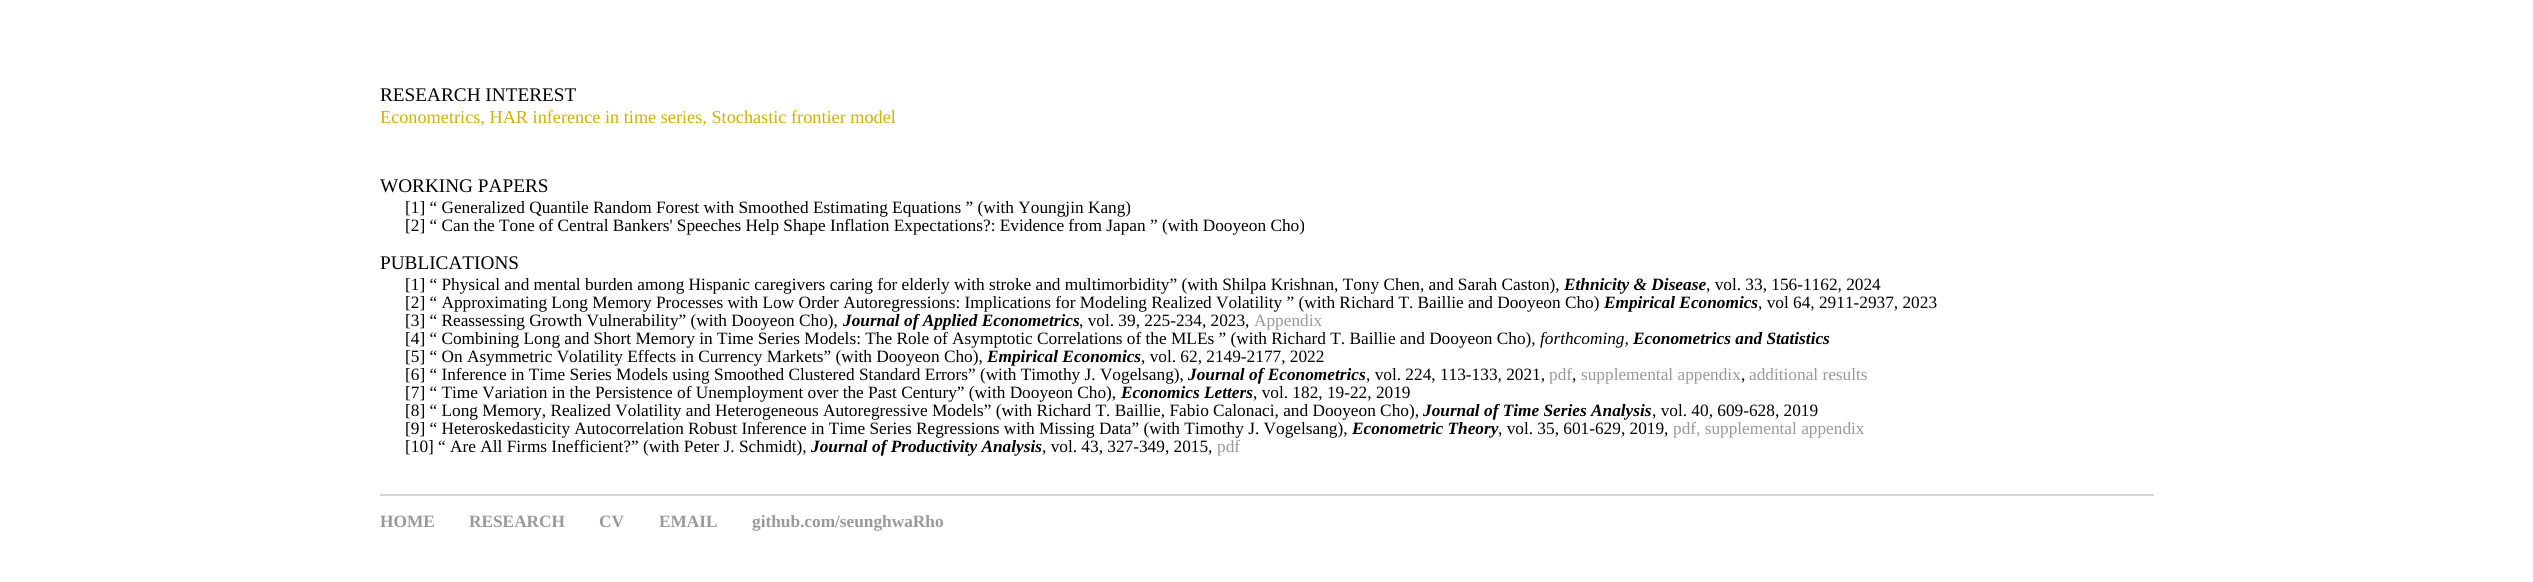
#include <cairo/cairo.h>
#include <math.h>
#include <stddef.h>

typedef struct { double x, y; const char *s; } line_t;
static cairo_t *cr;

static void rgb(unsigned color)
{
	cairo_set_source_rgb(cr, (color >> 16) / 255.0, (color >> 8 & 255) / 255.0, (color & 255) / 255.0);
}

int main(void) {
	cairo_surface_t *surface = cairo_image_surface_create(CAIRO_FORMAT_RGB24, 2533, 582);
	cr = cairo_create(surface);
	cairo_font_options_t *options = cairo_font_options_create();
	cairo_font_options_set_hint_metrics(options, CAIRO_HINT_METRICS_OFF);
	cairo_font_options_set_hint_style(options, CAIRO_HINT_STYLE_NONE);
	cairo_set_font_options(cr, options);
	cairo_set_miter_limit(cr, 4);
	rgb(0xffffff);
	cairo_paint(cr);
	rgb(0xd5d5d5);
	cairo_rectangle(cr, 380, 494, 1774, 2);
	cairo_fill(cr);
	cairo_select_font_face(cr, "Liberation Serif", CAIRO_FONT_SLANT_NORMAL, CAIRO_FONT_WEIGHT_NORMAL);
	cairo_set_font_size(cr, 19.25);
	rgb(0x000000);
	cairo_move_to(cr, 380, 101);
	cairo_show_text(cr, "RESEARCH INTEREST");
	cairo_set_font_size(cr, 18.25);
	rgb(0xd2b000);
	cairo_move_to(cr, 380, 123);
	cairo_show_text(cr, "Econometrics, HAR inference in time series, Stochastic frontier model");
	cairo_set_font_size(cr, 19.25);
	rgb(0x000000);
	cairo_move_to(cr, 380, 192);
	cairo_show_text(cr, "WORKING PAPERS");
	cairo_set_font_size(cr, 17.28);
	cairo_move_to(cr, 405, 213);
	cairo_show_text(cr, "[1] “ Generalized Quantile Random Forest with Smoothed Estimating Equations ” (with Youngjin Kang)");
	cairo_move_to(cr, 405, 231);
	cairo_show_text(cr, "[2] “ Can the Tone of Central Bankers' Speeches Help Shape Inflation Expectations?: Evidence from Japan ” (with Dooyeon Cho)");
	cairo_set_font_size(cr, 19.25);
	cairo_move_to(cr, 380, 269);
	cairo_show_text(cr, "PUBLICATIONS");
	cairo_set_font_size(cr, 17.28);
	cairo_move_to(cr, 405, 290);
	cairo_show_text(cr, "[1] “ Physical and mental burden among Hispanic caregivers caring for elderly with stroke and multimorbidity” (with Shilpa Krishnan, Tony Chen, and Sarah Caston),");
	cairo_select_font_face(cr, "Liberation Serif", CAIRO_FONT_SLANT_ITALIC, CAIRO_FONT_WEIGHT_BOLD);
	cairo_move_to(cr, 1564, 290);
	cairo_show_text(cr, "Ethnicity & Disease");
	cairo_select_font_face(cr, "Liberation Serif", CAIRO_FONT_SLANT_NORMAL, CAIRO_FONT_WEIGHT_NORMAL);
	cairo_move_to(cr, 1706, 290);
	cairo_show_text(cr, ", vol. 33, 156-1162, 2024");
	cairo_move_to(cr, 405, 308);
	cairo_show_text(cr, "[2] “ Approximating Long Memory Processes with Low Order Autoregressions: Implications for Modeling Realized Volatility ” (with Richard T. Baillie and Dooyeon Cho)");
	cairo_select_font_face(cr, "Liberation Serif", CAIRO_FONT_SLANT_ITALIC, CAIRO_FONT_WEIGHT_BOLD);
	cairo_move_to(cr, 1604, 308);
	cairo_show_text(cr, "Empirical Economics");
	cairo_select_font_face(cr, "Liberation Serif", CAIRO_FONT_SLANT_NORMAL, CAIRO_FONT_WEIGHT_NORMAL);
	cairo_move_to(cr, 1758, 308);
	cairo_show_text(cr, ", vol 64, 2911-2937, 2023");
	cairo_move_to(cr, 405, 326);
	cairo_show_text(cr, "[3] “ Reassessing Growth Vulnerability” (with Dooyeon Cho),");
	cairo_select_font_face(cr, "Liberation Serif", CAIRO_FONT_SLANT_ITALIC, CAIRO_FONT_WEIGHT_BOLD);
	cairo_move_to(cr, 843, 326);
	cairo_show_text(cr, "Journal of Applied Econometrics");
	cairo_select_font_face(cr, "Liberation Serif", CAIRO_FONT_SLANT_NORMAL, CAIRO_FONT_WEIGHT_NORMAL);
	cairo_move_to(cr, 1079, 326);
	cairo_show_text(cr, ", vol. 39, 225-234, 2023,");
	rgb(0x999999);
	cairo_move_to(cr, 1254, 326);
	cairo_show_text(cr, "Appendix");
	rgb(0x000000);
	cairo_move_to(cr, 405, 344);
	cairo_show_text(cr, "[4] “ Combining Long and Short Memory in Time Series Models: The Role of Asymptotic Correlations of the MLEs ” (with Richard T. Baillie and Dooyeon Cho),");
	cairo_select_font_face(cr, "Liberation Serif", CAIRO_FONT_SLANT_ITALIC, CAIRO_FONT_WEIGHT_NORMAL);
	cairo_move_to(cr, 1540, 344);
	cairo_show_text(cr, "forthcoming,");
	cairo_select_font_face(cr, "Liberation Serif", CAIRO_FONT_SLANT_ITALIC, CAIRO_FONT_WEIGHT_BOLD);
	cairo_move_to(cr, 1633, 344);
	cairo_show_text(cr, "Econometrics and Statistics");
	cairo_select_font_face(cr, "Liberation Serif", CAIRO_FONT_SLANT_NORMAL, CAIRO_FONT_WEIGHT_NORMAL);
	cairo_move_to(cr, 405, 362);
	cairo_show_text(cr, "[5] “ On Asymmetric Volatility Effects in Currency Markets” (with Dooyeon Cho),");
	cairo_select_font_face(cr, "Liberation Serif", CAIRO_FONT_SLANT_ITALIC, CAIRO_FONT_WEIGHT_BOLD);
	cairo_move_to(cr, 987, 362);
	cairo_show_text(cr, "Empirical Economics");
	cairo_select_font_face(cr, "Liberation Serif", CAIRO_FONT_SLANT_NORMAL, CAIRO_FONT_WEIGHT_NORMAL);
	cairo_move_to(cr, 1141, 362);
	cairo_show_text(cr, ", vol. 62, 2149-2177, 2022");
	cairo_move_to(cr, 405, 380);
	cairo_show_text(cr, "[6] “ Inference in Time Series Models using Smoothed Clustered Standard Errors” (with Timothy J. Vogelsang),");
	cairo_select_font_face(cr, "Liberation Serif", CAIRO_FONT_SLANT_ITALIC, CAIRO_FONT_WEIGHT_BOLD);
	cairo_move_to(cr, 1188, 380);
	cairo_show_text(cr, "Journal of Econometrics");
	cairo_select_font_face(cr, "Liberation Serif", CAIRO_FONT_SLANT_NORMAL, CAIRO_FONT_WEIGHT_NORMAL);
	cairo_move_to(cr, 1366, 380);
	cairo_show_text(cr, ", vol. 224, 113-133, 2021,");
	rgb(0x999999);
	cairo_move_to(cr, 1549, 380);
	cairo_show_text(cr, "pdf");
	rgb(0x000000);
	cairo_move_to(cr, 1572, 380);
	cairo_show_text(cr, ",");
	rgb(0x999999);
	cairo_move_to(cr, 1581, 380);
	cairo_show_text(cr, "supplemental appendix");
	rgb(0x000000);
	cairo_move_to(cr, 1741, 380);
	cairo_show_text(cr, ",");
	rgb(0x999999);
	cairo_move_to(cr, 1749, 380);
	cairo_show_text(cr, "additional results");
	rgb(0x000000);
	cairo_move_to(cr, 405, 398);
	cairo_show_text(cr, "[7] “ Time Variation in the Persistence of Unemployment over the Past Century” (with Dooyeon Cho),");
	cairo_select_font_face(cr, "Liberation Serif", CAIRO_FONT_SLANT_ITALIC, CAIRO_FONT_WEIGHT_BOLD);
	cairo_move_to(cr, 1121, 398);
	cairo_show_text(cr, "Economics Letters");
	cairo_select_font_face(cr, "Liberation Serif", CAIRO_FONT_SLANT_NORMAL, CAIRO_FONT_WEIGHT_NORMAL);
	cairo_move_to(cr, 1253, 398);
	cairo_show_text(cr, ", vol. 182, 19-22, 2019");
	cairo_move_to(cr, 405, 416);
	cairo_show_text(cr, "[8] “ Long Memory, Realized Volatility and Heterogeneous Autoregressive Models” (with Richard T. Baillie, Fabio Calonaci, and Dooyeon Cho),");
	cairo_select_font_face(cr, "Liberation Serif", CAIRO_FONT_SLANT_ITALIC, CAIRO_FONT_WEIGHT_BOLD);
	cairo_move_to(cr, 1423, 416);
	cairo_show_text(cr, "Journal of Time Series Analysis");
	cairo_select_font_face(cr, "Liberation Serif", CAIRO_FONT_SLANT_NORMAL, CAIRO_FONT_WEIGHT_NORMAL);
	cairo_move_to(cr, 1652, 416);
	cairo_show_text(cr, ", vol. 40, 609-628, 2019");
	cairo_move_to(cr, 405, 434);
	cairo_show_text(cr, "[9] “ Heteroskedasticity Autocorrelation Robust Inference in Time Series Regressions with Missing Data” (with Timothy J. Vogelsang),");
	cairo_select_font_face(cr, "Liberation Serif", CAIRO_FONT_SLANT_ITALIC, CAIRO_FONT_WEIGHT_BOLD);
	cairo_move_to(cr, 1352, 434);
	cairo_show_text(cr, "Econometric Theory");
	cairo_select_font_face(cr, "Liberation Serif", CAIRO_FONT_SLANT_NORMAL, CAIRO_FONT_WEIGHT_NORMAL);
	cairo_move_to(cr, 1498, 434);
	cairo_show_text(cr, ", vol. 35, 601-629, 2019,");
	rgb(0x999999);
	cairo_move_to(cr, 1673, 434);
	cairo_show_text(cr, "pdf, supplemental appendix");
	rgb(0x000000);
	cairo_move_to(cr, 405, 452);
	cairo_show_text(cr, "[10] “ Are All Firms Inefficient?” (with Peter J. Schmidt),");
	cairo_select_font_face(cr, "Liberation Serif", CAIRO_FONT_SLANT_ITALIC, CAIRO_FONT_WEIGHT_BOLD);
	cairo_move_to(cr, 811, 452);
	cairo_show_text(cr, "Journal of Productivity Analysis");
	cairo_select_font_face(cr, "Liberation Serif", CAIRO_FONT_SLANT_NORMAL, CAIRO_FONT_WEIGHT_NORMAL);
	cairo_move_to(cr, 1042, 452);
	cairo_show_text(cr, ", vol. 43, 327-349, 2015,");
	rgb(0x999999);
	cairo_move_to(cr, 1217, 452);
	cairo_show_text(cr, "pdf");
	cairo_select_font_face(cr, "Liberation Serif", CAIRO_FONT_SLANT_NORMAL, CAIRO_FONT_WEIGHT_BOLD);
	{
		static const line_t items[] = {
			{380, 527, "HOME"},
			{469, 527, "RESEARCH"},
			{599, 527, "CV"},
			{659, 527, "EMAIL"},
			{752, 527, "github.com/seunghwaRho"},
		};
		for (size_t i = 0; i < sizeof items / sizeof *items; i++) {
			cairo_move_to(cr, items[i].x, items[i].y);
			cairo_show_text(cr, items[i].s);
		}
	}
	cairo_surface_write_to_png(surface, "page.png");
	cairo_font_options_destroy(options);
	cairo_destroy(cr);
	cairo_surface_destroy(surface);
	return 0;
}
